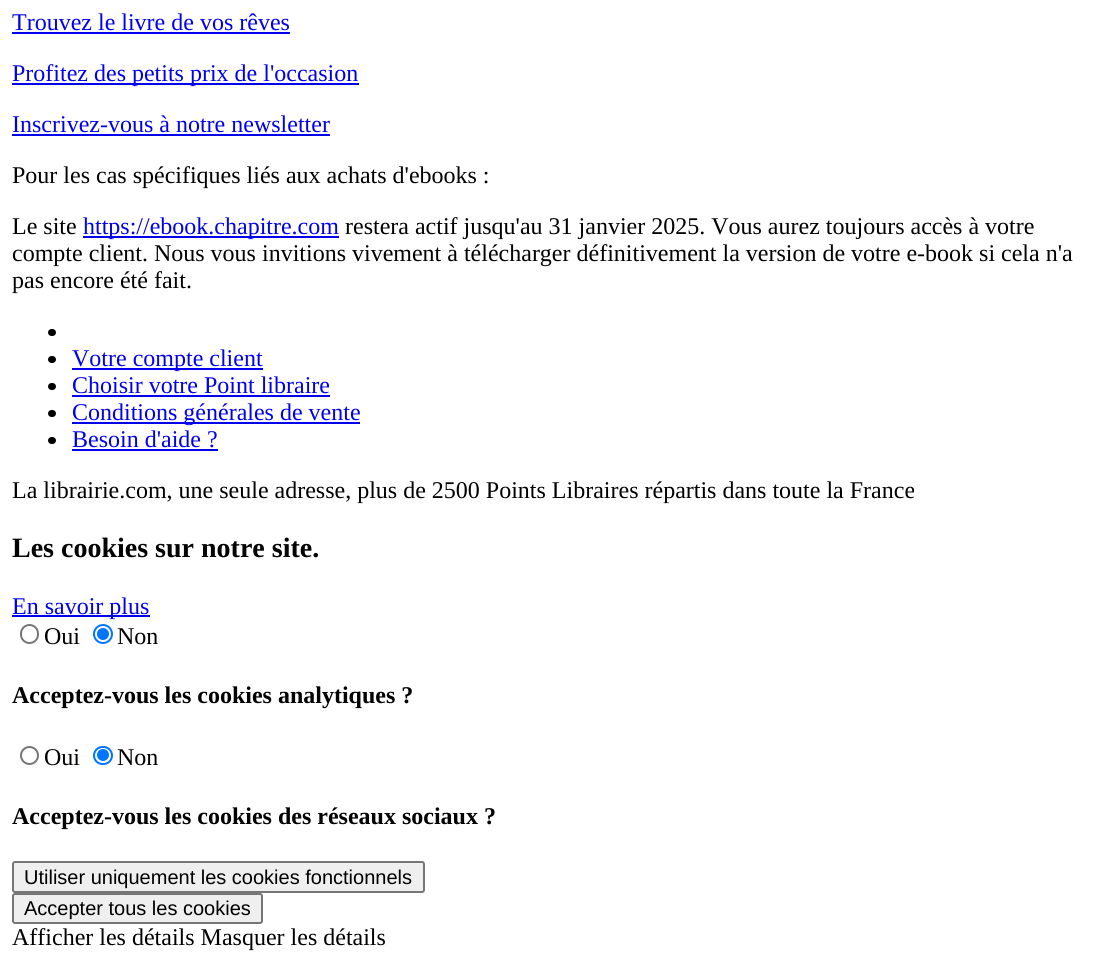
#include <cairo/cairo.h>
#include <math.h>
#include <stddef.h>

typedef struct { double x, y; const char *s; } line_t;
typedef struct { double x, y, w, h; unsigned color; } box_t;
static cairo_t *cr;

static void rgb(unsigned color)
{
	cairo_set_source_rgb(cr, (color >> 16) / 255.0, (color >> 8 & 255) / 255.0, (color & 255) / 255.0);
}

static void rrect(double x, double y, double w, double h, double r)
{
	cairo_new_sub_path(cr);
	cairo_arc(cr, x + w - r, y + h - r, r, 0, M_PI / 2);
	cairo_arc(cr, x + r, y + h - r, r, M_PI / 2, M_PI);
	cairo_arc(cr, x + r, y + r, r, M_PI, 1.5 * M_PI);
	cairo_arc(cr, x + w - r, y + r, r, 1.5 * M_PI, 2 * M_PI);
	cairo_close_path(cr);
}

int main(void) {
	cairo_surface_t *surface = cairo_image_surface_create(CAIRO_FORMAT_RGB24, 1093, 962);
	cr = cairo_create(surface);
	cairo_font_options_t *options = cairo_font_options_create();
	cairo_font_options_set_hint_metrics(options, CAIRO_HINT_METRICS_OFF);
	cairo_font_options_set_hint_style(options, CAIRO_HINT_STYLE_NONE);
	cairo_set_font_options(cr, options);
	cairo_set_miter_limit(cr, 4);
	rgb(0xffffff);
	cairo_paint(cr);
	{
		static const box_t items[] = {
			{12, 32, 278, 2, 0x0000ee},
			{12, 83, 347, 2, 0x0000ee},
			{12, 134, 318, 2, 0x0000ee},
			{83, 236, 256, 2, 0x0000ee},
		};
		for (size_t i = 0; i < sizeof items / sizeof *items; i++) {
			rgb(items[i].color);
			cairo_rectangle(cr, items[i].x, items[i].y, items[i].w, items[i].h);
			cairo_fill(cr);
		}
	}
	rgb(0x000000);
	rrect(48, 329, 8, 7, 3.5);
	cairo_fill(cr);
	rrect(48, 356, 8, 7, 3.5);
	cairo_fill(cr);
	rgb(0x0000ee);
	cairo_rectangle(cr, 72, 368, 191, 2);
	cairo_fill(cr);
	rgb(0x000000);
	rrect(48, 383, 8, 7, 3.5);
	cairo_fill(cr);
	rgb(0x0000ee);
	cairo_rectangle(cr, 72, 395, 258, 2);
	cairo_fill(cr);
	rgb(0x000000);
	rrect(48, 410, 8, 7, 3.5);
	cairo_fill(cr);
	rgb(0x0000ee);
	cairo_rectangle(cr, 72, 422, 288, 2);
	cairo_fill(cr);
	rgb(0x000000);
	rrect(48, 437, 8, 7, 3.5);
	cairo_fill(cr);
	rgb(0x0000ee);
	cairo_rectangle(cr, 72, 449, 146, 2);
	cairo_fill(cr);
	cairo_rectangle(cr, 12, 615, 138, 2);
	cairo_fill(cr);
	rrect(21, 625, 17, 18, 8.5);
	rgb(0x767676);
	cairo_stroke(cr);
	cairo_arc(cr, 103, 634, 9, 0, 2 * M_PI);
	rgb(0x0075ff);
	cairo_stroke(cr);
	cairo_arc(cr, 103, 634, 6, 0, 2 * M_PI);
	cairo_fill(cr);
	cairo_arc(cr, 29.5, 755.5, 8.5, 0, 2 * M_PI);
	rgb(0x767676);
	cairo_stroke(cr);
	rrect(94, 747, 18, 17, 8.5);
	rgb(0x0075ff);
	cairo_stroke(cr);
	cairo_arc(cr, 103, 755, 6, 0, 2 * M_PI);
	cairo_fill(cr);
	rgb(0xefefef);
	rrect(13, 862, 411, 30, 2);
	cairo_fill_preserve(cr);
	rgb(0x767676);
	cairo_stroke(cr);
	rgb(0xefefef);
	rrect(13, 894, 249, 29, 2);
	cairo_fill_preserve(cr);
	rgb(0x767676);
	cairo_stroke(cr);
	cairo_select_font_face(cr, "Liberation Serif", CAIRO_FONT_SLANT_NORMAL, CAIRO_FONT_WEIGHT_NORMAL);
	cairo_set_font_size(cr, 24);
	rgb(0x0000ee);
	{
		static const line_t items[] = {
			{12, 30, "Trouvez le livre de vos rêves"},
			{12, 81, "Profitez des petits prix de l'occasion"},
			{12, 132, "Inscrivez-vous à notre newsletter"},
		};
		for (size_t i = 0; i < sizeof items / sizeof *items; i++) {
			cairo_move_to(cr, items[i].x, items[i].y);
			cairo_show_text(cr, items[i].s);
		}
	}
	rgb(0x000000);
	cairo_move_to(cr, 12, 183);
	cairo_show_text(cr, "Pour les cas spécifiques liés aux achats d'ebooks :");
	cairo_move_to(cr, 12, 234);
	cairo_show_text(cr, "Le site");
	rgb(0x0000ee);
	cairo_move_to(cr, 83, 234);
	cairo_show_text(cr, "https://ebook.chapitre.com");
	rgb(0x000000);
	{
		static const line_t items[] = {
			{345, 234, "restera actif jusqu'au 31 janvier 2025. Vous aurez toujours accès à votre"},
			{12, 261, "compte client. Nous vous invitions vivement à télécharger définitivement la version de votre e-book si cela n'a"},
			{12, 288, "pas encore été fait."},
		};
		for (size_t i = 0; i < sizeof items / sizeof *items; i++) {
			cairo_move_to(cr, items[i].x, items[i].y);
			cairo_show_text(cr, items[i].s);
		}
	}
	rgb(0x0000ee);
	{
		static const line_t items[] = {
			{72, 366, "Votre compte client"},
			{72, 393, "Choisir votre Point libraire"},
			{72, 420, "Conditions générales de vente"},
			{72, 447, "Besoin d'aide ?"},
		};
		for (size_t i = 0; i < sizeof items / sizeof *items; i++) {
			cairo_move_to(cr, items[i].x, items[i].y);
			cairo_show_text(cr, items[i].s);
		}
	}
	rgb(0x000000);
	cairo_move_to(cr, 12, 498);
	cairo_show_text(cr, "La librairie.com, une seule adresse, plus de 2500 Points Libraires répartis dans toute la France");
	cairo_select_font_face(cr, "Liberation Serif", CAIRO_FONT_SLANT_NORMAL, CAIRO_FONT_WEIGHT_BOLD);
	cairo_set_font_size(cr, 28);
	cairo_move_to(cr, 12, 557);
	cairo_show_text(cr, "Les cookies sur notre site.");
	cairo_select_font_face(cr, "Liberation Serif", CAIRO_FONT_SLANT_NORMAL, CAIRO_FONT_WEIGHT_NORMAL);
	cairo_set_font_size(cr, 24);
	rgb(0x0000ee);
	cairo_move_to(cr, 12, 614);
	cairo_show_text(cr, "En savoir plus");
	rgb(0x000000);
	cairo_move_to(cr, 44, 644);
	cairo_show_text(cr, "Oui");
	cairo_move_to(cr, 117, 644);
	cairo_show_text(cr, "Non");
	cairo_select_font_face(cr, "Liberation Serif", CAIRO_FONT_SLANT_NORMAL, CAIRO_FONT_WEIGHT_BOLD);
	cairo_move_to(cr, 12, 703);
	cairo_show_text(cr, "Acceptez-vous les cookies analytiques ?");
	cairo_select_font_face(cr, "Liberation Serif", CAIRO_FONT_SLANT_NORMAL, CAIRO_FONT_WEIGHT_NORMAL);
	cairo_move_to(cr, 44, 765);
	cairo_show_text(cr, "Oui");
	cairo_move_to(cr, 117, 765);
	cairo_show_text(cr, "Non");
	cairo_select_font_face(cr, "Liberation Serif", CAIRO_FONT_SLANT_NORMAL, CAIRO_FONT_WEIGHT_BOLD);
	cairo_move_to(cr, 12, 824);
	cairo_show_text(cr, "Acceptez-vous les cookies des réseaux sociaux ?");
	cairo_select_font_face(cr, "Liberation Sans", CAIRO_FONT_SLANT_NORMAL, CAIRO_FONT_WEIGHT_NORMAL);
	cairo_set_font_size(cr, 20);
	cairo_move_to(cr, 24, 884);
	cairo_show_text(cr, "Utiliser uniquement les cookies fonctionnels");
	cairo_move_to(cr, 24, 915);
	cairo_show_text(cr, "Accepter tous les cookies");
	cairo_select_font_face(cr, "Liberation Serif", CAIRO_FONT_SLANT_NORMAL, CAIRO_FONT_WEIGHT_NORMAL);
	cairo_set_font_size(cr, 24);
	cairo_move_to(cr, 12, 945);
	cairo_show_text(cr, "Afficher les détails Masquer les détails");
	cairo_surface_write_to_png(surface, "page.png");
	cairo_font_options_destroy(options);
	cairo_destroy(cr);
	cairo_surface_destroy(surface);
	return 0;
}
